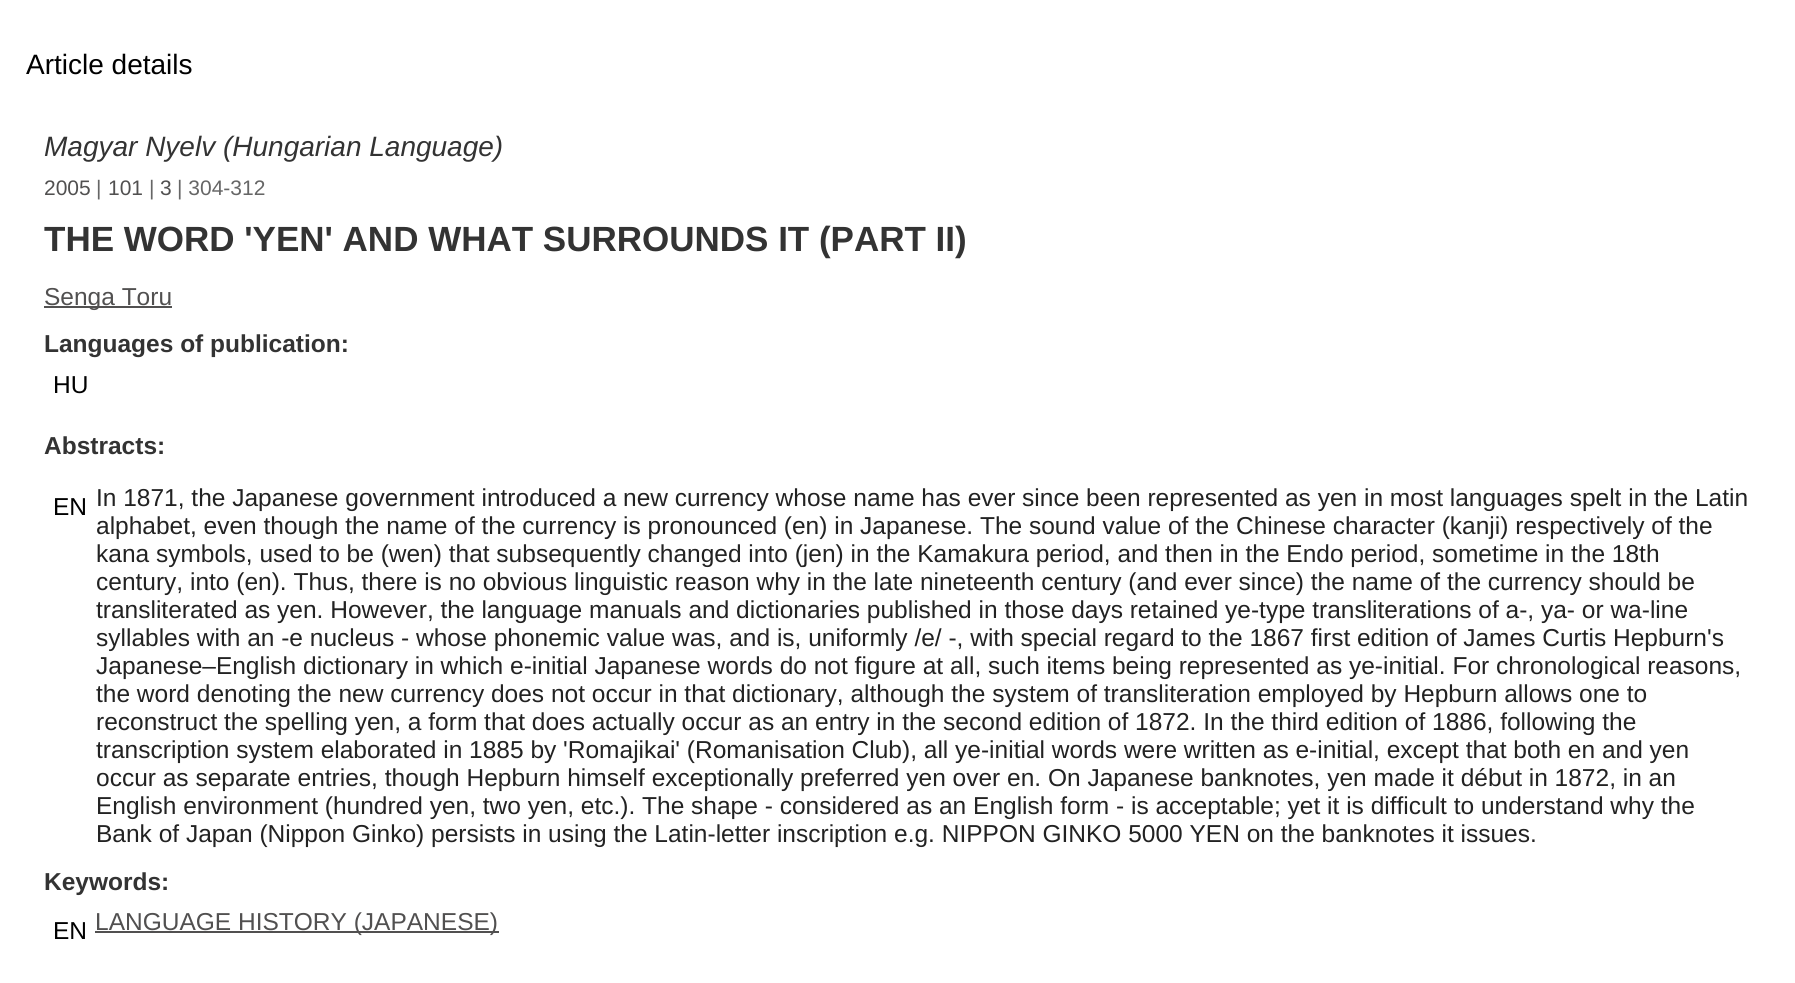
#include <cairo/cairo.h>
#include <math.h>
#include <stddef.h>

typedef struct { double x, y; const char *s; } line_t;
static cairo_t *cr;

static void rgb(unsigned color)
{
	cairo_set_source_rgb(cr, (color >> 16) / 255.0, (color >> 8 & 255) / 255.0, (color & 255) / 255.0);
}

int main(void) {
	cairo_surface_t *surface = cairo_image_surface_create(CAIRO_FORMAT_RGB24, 1795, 983);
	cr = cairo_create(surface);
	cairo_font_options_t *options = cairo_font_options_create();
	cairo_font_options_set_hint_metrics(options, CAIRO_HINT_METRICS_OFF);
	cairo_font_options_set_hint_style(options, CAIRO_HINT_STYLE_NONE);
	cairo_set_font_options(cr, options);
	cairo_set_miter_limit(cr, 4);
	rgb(0xffffff);
	cairo_paint(cr);
	rgb(0x515050);
	cairo_rectangle(cr, 44, 306, 128, 2);
	cairo_fill(cr);
	cairo_rectangle(cr, 95, 931, 404, 2);
	cairo_fill(cr);
	cairo_select_font_face(cr, "Liberation Sans", CAIRO_FONT_SLANT_NORMAL, CAIRO_FONT_WEIGHT_NORMAL);
	cairo_set_font_size(cr, 28);
	rgb(0x000000);
	cairo_move_to(cr, 26, 74);
	cairo_show_text(cr, "Article details");
	cairo_select_font_face(cr, "Liberation Sans", CAIRO_FONT_SLANT_ITALIC, CAIRO_FONT_WEIGHT_NORMAL);
	rgb(0x333333);
	cairo_move_to(cr, 44, 156);
	cairo_show_text(cr, "Magyar Nyelv (Hungarian Language)");
	cairo_select_font_face(cr, "Liberation Sans", CAIRO_FONT_SLANT_NORMAL, CAIRO_FONT_WEIGHT_NORMAL);
	cairo_set_font_size(cr, 21);
	rgb(0x515050);
	cairo_move_to(cr, 44, 195);
	cairo_show_text(cr, "2005");
	rgb(0x666666);
	cairo_move_to(cr, 96, 195);
	cairo_show_text(cr, "|");
	rgb(0x515050);
	cairo_move_to(cr, 108, 195);
	cairo_show_text(cr, "101");
	rgb(0x666666);
	cairo_move_to(cr, 149, 195);
	cairo_show_text(cr, "|");
	rgb(0x515050);
	cairo_move_to(cr, 160, 195);
	cairo_show_text(cr, "3");
	rgb(0x666666);
	cairo_move_to(cr, 177, 195);
	cairo_show_text(cr, "| 304-312");
	cairo_select_font_face(cr, "Liberation Sans", CAIRO_FONT_SLANT_NORMAL, CAIRO_FONT_WEIGHT_BOLD);
	cairo_set_font_size(cr, 35);
	rgb(0x333333);
	cairo_move_to(cr, 44, 251);
	cairo_show_text(cr, "THE WORD 'YEN' AND WHAT SURROUNDS IT (PART II)");
	cairo_select_font_face(cr, "Liberation Sans", CAIRO_FONT_SLANT_NORMAL, CAIRO_FONT_WEIGHT_NORMAL);
	cairo_set_font_size(cr, 24.5);
	rgb(0x515050);
	cairo_move_to(cr, 44, 305);
	cairo_show_text(cr, "Senga Toru");
	cairo_select_font_face(cr, "Liberation Sans", CAIRO_FONT_SLANT_NORMAL, CAIRO_FONT_WEIGHT_BOLD);
	rgb(0x333333);
	cairo_move_to(cr, 44, 352);
	cairo_show_text(cr, "Languages of publication:");
	cairo_select_font_face(cr, "Liberation Sans", CAIRO_FONT_SLANT_NORMAL, CAIRO_FONT_WEIGHT_NORMAL);
	rgb(0x000000);
	cairo_move_to(cr, 53, 393);
	cairo_show_text(cr, "HU");
	cairo_select_font_face(cr, "Liberation Sans", CAIRO_FONT_SLANT_NORMAL, CAIRO_FONT_WEIGHT_BOLD);
	rgb(0x333333);
	cairo_move_to(cr, 44, 454);
	cairo_show_text(cr, "Abstracts:");
	cairo_select_font_face(cr, "Liberation Sans", CAIRO_FONT_SLANT_NORMAL, CAIRO_FONT_WEIGHT_NORMAL);
	rgb(0x000000);
	cairo_move_to(cr, 53, 515);
	cairo_show_text(cr, "EN");
	rgb(0x222222);
	{
		static const line_t items[] = {
			{96, 506, "In 1871, the Japanese government introduced a new currency whose name has ever since been represented as yen in most languages spelt in the Latin"},
			{96, 534, "alphabet, even though the name of the currency is pronounced (en) in Japanese. The sound value of the Chinese character (kanji) respectively of the"},
			{96, 562, "kana symbols, used to be (wen) that subsequently changed into (jen) in the Kamakura period, and then in the Endo period, sometime in the 18th"},
			{96, 590, "century, into (en). Thus, there is no obvious linguistic reason why in the late nineteenth century (and ever since) the name of the currency should be"},
			{96, 618, "transliterated as yen. However, the language manuals and dictionaries published in those days retained ye-type transliterations of a-, ya- or wa-line"},
			{96, 646, "syllables with an -e nucleus - whose phonemic value was, and is, uniformly /e/ -, with special regard to the 1867 first edition of James Curtis Hepburn's"},
			{96, 674, "Japanese–English dictionary in which e-initial Japanese words do not figure at all, such items being represented as ye-initial. For chronological reasons,"},
			{96, 702, "the word denoting the new currency does not occur in that dictionary, although the system of transliteration employed by Hepburn allows one to"},
			{96, 730, "reconstruct the spelling yen, a form that does actually occur as an entry in the second edition of 1872. In the third edition of 1886, following the"},
			{96, 758, "transcription system elaborated in 1885 by 'Romajikai' (Romanisation Club), all ye-initial words were written as e-initial, except that both en and yen"},
			{96, 786, "occur as separate entries, though Hepburn himself exceptionally preferred yen over en. On Japanese banknotes, yen made it début in 1872, in an"},
			{96, 814, "English environment (hundred yen, two yen, etc.). The shape - considered as an English form - is acceptable; yet it is difficult to understand why the"},
			{96, 842, "Bank of Japan (Nippon Ginko) persists in using the Latin-letter inscription e.g. NIPPON GINKO 5000 YEN on the banknotes it issues."},
		};
		for (size_t i = 0; i < sizeof items / sizeof *items; i++) {
			cairo_move_to(cr, items[i].x, items[i].y);
			cairo_show_text(cr, items[i].s);
		}
	}
	cairo_select_font_face(cr, "Liberation Sans", CAIRO_FONT_SLANT_NORMAL, CAIRO_FONT_WEIGHT_BOLD);
	rgb(0x333333);
	cairo_move_to(cr, 44, 890);
	cairo_show_text(cr, "Keywords:");
	cairo_select_font_face(cr, "Liberation Sans", CAIRO_FONT_SLANT_NORMAL, CAIRO_FONT_WEIGHT_NORMAL);
	rgb(0x000000);
	cairo_move_to(cr, 53, 939);
	cairo_show_text(cr, "EN");
	rgb(0x515050);
	cairo_move_to(cr, 95, 930);
	cairo_show_text(cr, "LANGUAGE HISTORY (JAPANESE)");
	cairo_surface_write_to_png(surface, "page.png");
	cairo_font_options_destroy(options);
	cairo_destroy(cr);
	cairo_surface_destroy(surface);
	return 0;
}
